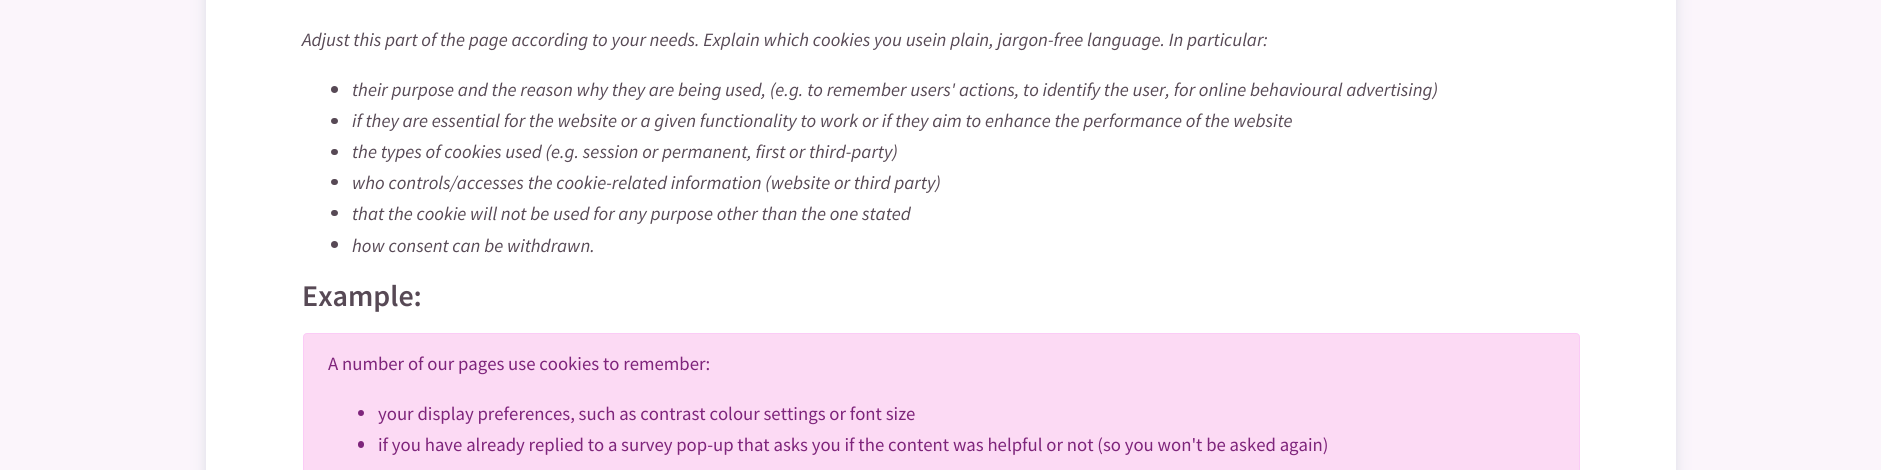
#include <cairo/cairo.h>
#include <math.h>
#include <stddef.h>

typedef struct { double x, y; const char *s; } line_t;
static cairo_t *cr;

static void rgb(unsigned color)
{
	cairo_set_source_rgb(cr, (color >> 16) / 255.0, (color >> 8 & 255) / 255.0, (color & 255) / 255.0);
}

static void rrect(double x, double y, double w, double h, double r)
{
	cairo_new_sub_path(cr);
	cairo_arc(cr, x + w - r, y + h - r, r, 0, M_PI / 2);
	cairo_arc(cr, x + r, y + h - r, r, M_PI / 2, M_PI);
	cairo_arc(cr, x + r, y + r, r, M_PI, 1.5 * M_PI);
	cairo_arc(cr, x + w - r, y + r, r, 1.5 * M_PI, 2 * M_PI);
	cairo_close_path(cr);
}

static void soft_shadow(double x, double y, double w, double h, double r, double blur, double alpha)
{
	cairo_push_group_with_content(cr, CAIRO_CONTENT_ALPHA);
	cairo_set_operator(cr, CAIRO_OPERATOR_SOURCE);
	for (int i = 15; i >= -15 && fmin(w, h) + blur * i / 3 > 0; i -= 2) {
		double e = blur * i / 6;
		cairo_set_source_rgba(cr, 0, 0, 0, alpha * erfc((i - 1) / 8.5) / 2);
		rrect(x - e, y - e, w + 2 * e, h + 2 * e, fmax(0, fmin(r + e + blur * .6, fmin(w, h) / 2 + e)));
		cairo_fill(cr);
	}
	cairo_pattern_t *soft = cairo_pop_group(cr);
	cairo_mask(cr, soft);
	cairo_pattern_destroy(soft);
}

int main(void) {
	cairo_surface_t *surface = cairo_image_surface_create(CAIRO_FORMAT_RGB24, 1881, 470);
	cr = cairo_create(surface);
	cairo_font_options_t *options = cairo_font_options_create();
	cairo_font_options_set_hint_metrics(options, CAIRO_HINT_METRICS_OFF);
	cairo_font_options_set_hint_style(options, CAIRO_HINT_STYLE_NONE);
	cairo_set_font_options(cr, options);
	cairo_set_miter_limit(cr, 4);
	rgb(0xfbf5fb);
	cairo_paint(cr);
	rgb(0x040608);
	soft_shadow(206, -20, 1470, 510, 8, 4, 0.05);
	rgb(0x3c7496);
	soft_shadow(206, -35, 1470, 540, 8, 9, 0.12);
	rgb(0xffffff);
	cairo_rectangle(cr, 206, 0, 1470, 470);
	cairo_fill(cr);
	rgb(0x574955);
	cairo_arc(cr, 334.5, 89.5, 3.5, 0, 2 * M_PI);
	cairo_fill(cr);
	rrect(331, 118, 7, 6, 3);
	cairo_fill(cr);
	rrect(331, 149, 7, 6, 3);
	cairo_fill(cr);
	rrect(331, 179, 7, 6, 3);
	cairo_fill(cr);
	rrect(331, 210, 7, 6, 3);
	cairo_fill(cr);
	cairo_arc(cr, 334.5, 244.5, 3.5, 0, 2 * M_PI);
	cairo_fill(cr);
	rgb(0xfcdaf4);
	rrect(303.5, 333.5, 1276, 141, 3.5);
	cairo_fill_preserve(cr);
	rgb(0xfbcbf6);
	cairo_set_line_width(cr, 1);
	cairo_stroke(cr);
	rgb(0x7e247b);
	cairo_arc(cr, 361, 413, 3, 0, 2 * M_PI);
	cairo_fill(cr);
	rrect(358, 441, 6, 7, 3);
	cairo_fill(cr);
	cairo_select_font_face(cr, "Source Sans Pro", CAIRO_FONT_SLANT_ITALIC, CAIRO_FONT_WEIGHT_NORMAL);
	cairo_set_font_size(cr, 18.75);
	rgb(0x574955);
	{
		static const line_t items[] = {
			{302, 46, "Adjust this part of the page according to your needs. Explain which cookies you usein plain, jargon-free language. In particular:"},
			{352, 96, "their purpose and the reason why they are being used, (e.g. to remember users' actions, to identify the user, for online behavioural advertising)"},
			{352, 127, "if they are essential for the website or a given functionality to work or if they aim to enhance the performance of the website"},
			{352, 158, "the types of cookies used (e.g. session or permanent, first or third-party)"},
			{352, 189, "who controls/accesses the cookie-related information (website or third party)"},
			{352, 220, "that the cookie will not be used for any purpose other than the one stated"},
			{352, 252, "how consent can be withdrawn."},
		};
		for (size_t i = 0; i < sizeof items / sizeof *items; i++) {
			cairo_move_to(cr, items[i].x, items[i].y);
			cairo_show_text(cr, items[i].s);
		}
	}
	cairo_select_font_face(cr, "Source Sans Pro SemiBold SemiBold", CAIRO_FONT_SLANT_NORMAL, CAIRO_FONT_WEIGHT_NORMAL);
	cairo_set_font_size(cr, 30);
	cairo_move_to(cr, 302, 306);
	cairo_show_text(cr, "Example:");
	cairo_select_font_face(cr, "Source Sans Pro", CAIRO_FONT_SLANT_NORMAL, CAIRO_FONT_WEIGHT_NORMAL);
	cairo_set_font_size(cr, 18.75);
	rgb(0x7e247b);
	{
		static const line_t items[] = {
			{328, 370, "A number of our pages use cookies to remember:"},
			{378, 420, "your display preferences, such as contrast colour settings or font size"},
			{378, 451, "if you have already replied to a survey pop-up that asks you if the content was helpful or not (so you won't be asked again)"},
		};
		for (size_t i = 0; i < sizeof items / sizeof *items; i++) {
			cairo_move_to(cr, items[i].x, items[i].y);
			cairo_show_text(cr, items[i].s);
		}
	}
	cairo_surface_write_to_png(surface, "page.png");
	cairo_font_options_destroy(options);
	cairo_destroy(cr);
	cairo_surface_destroy(surface);
	return 0;
}
